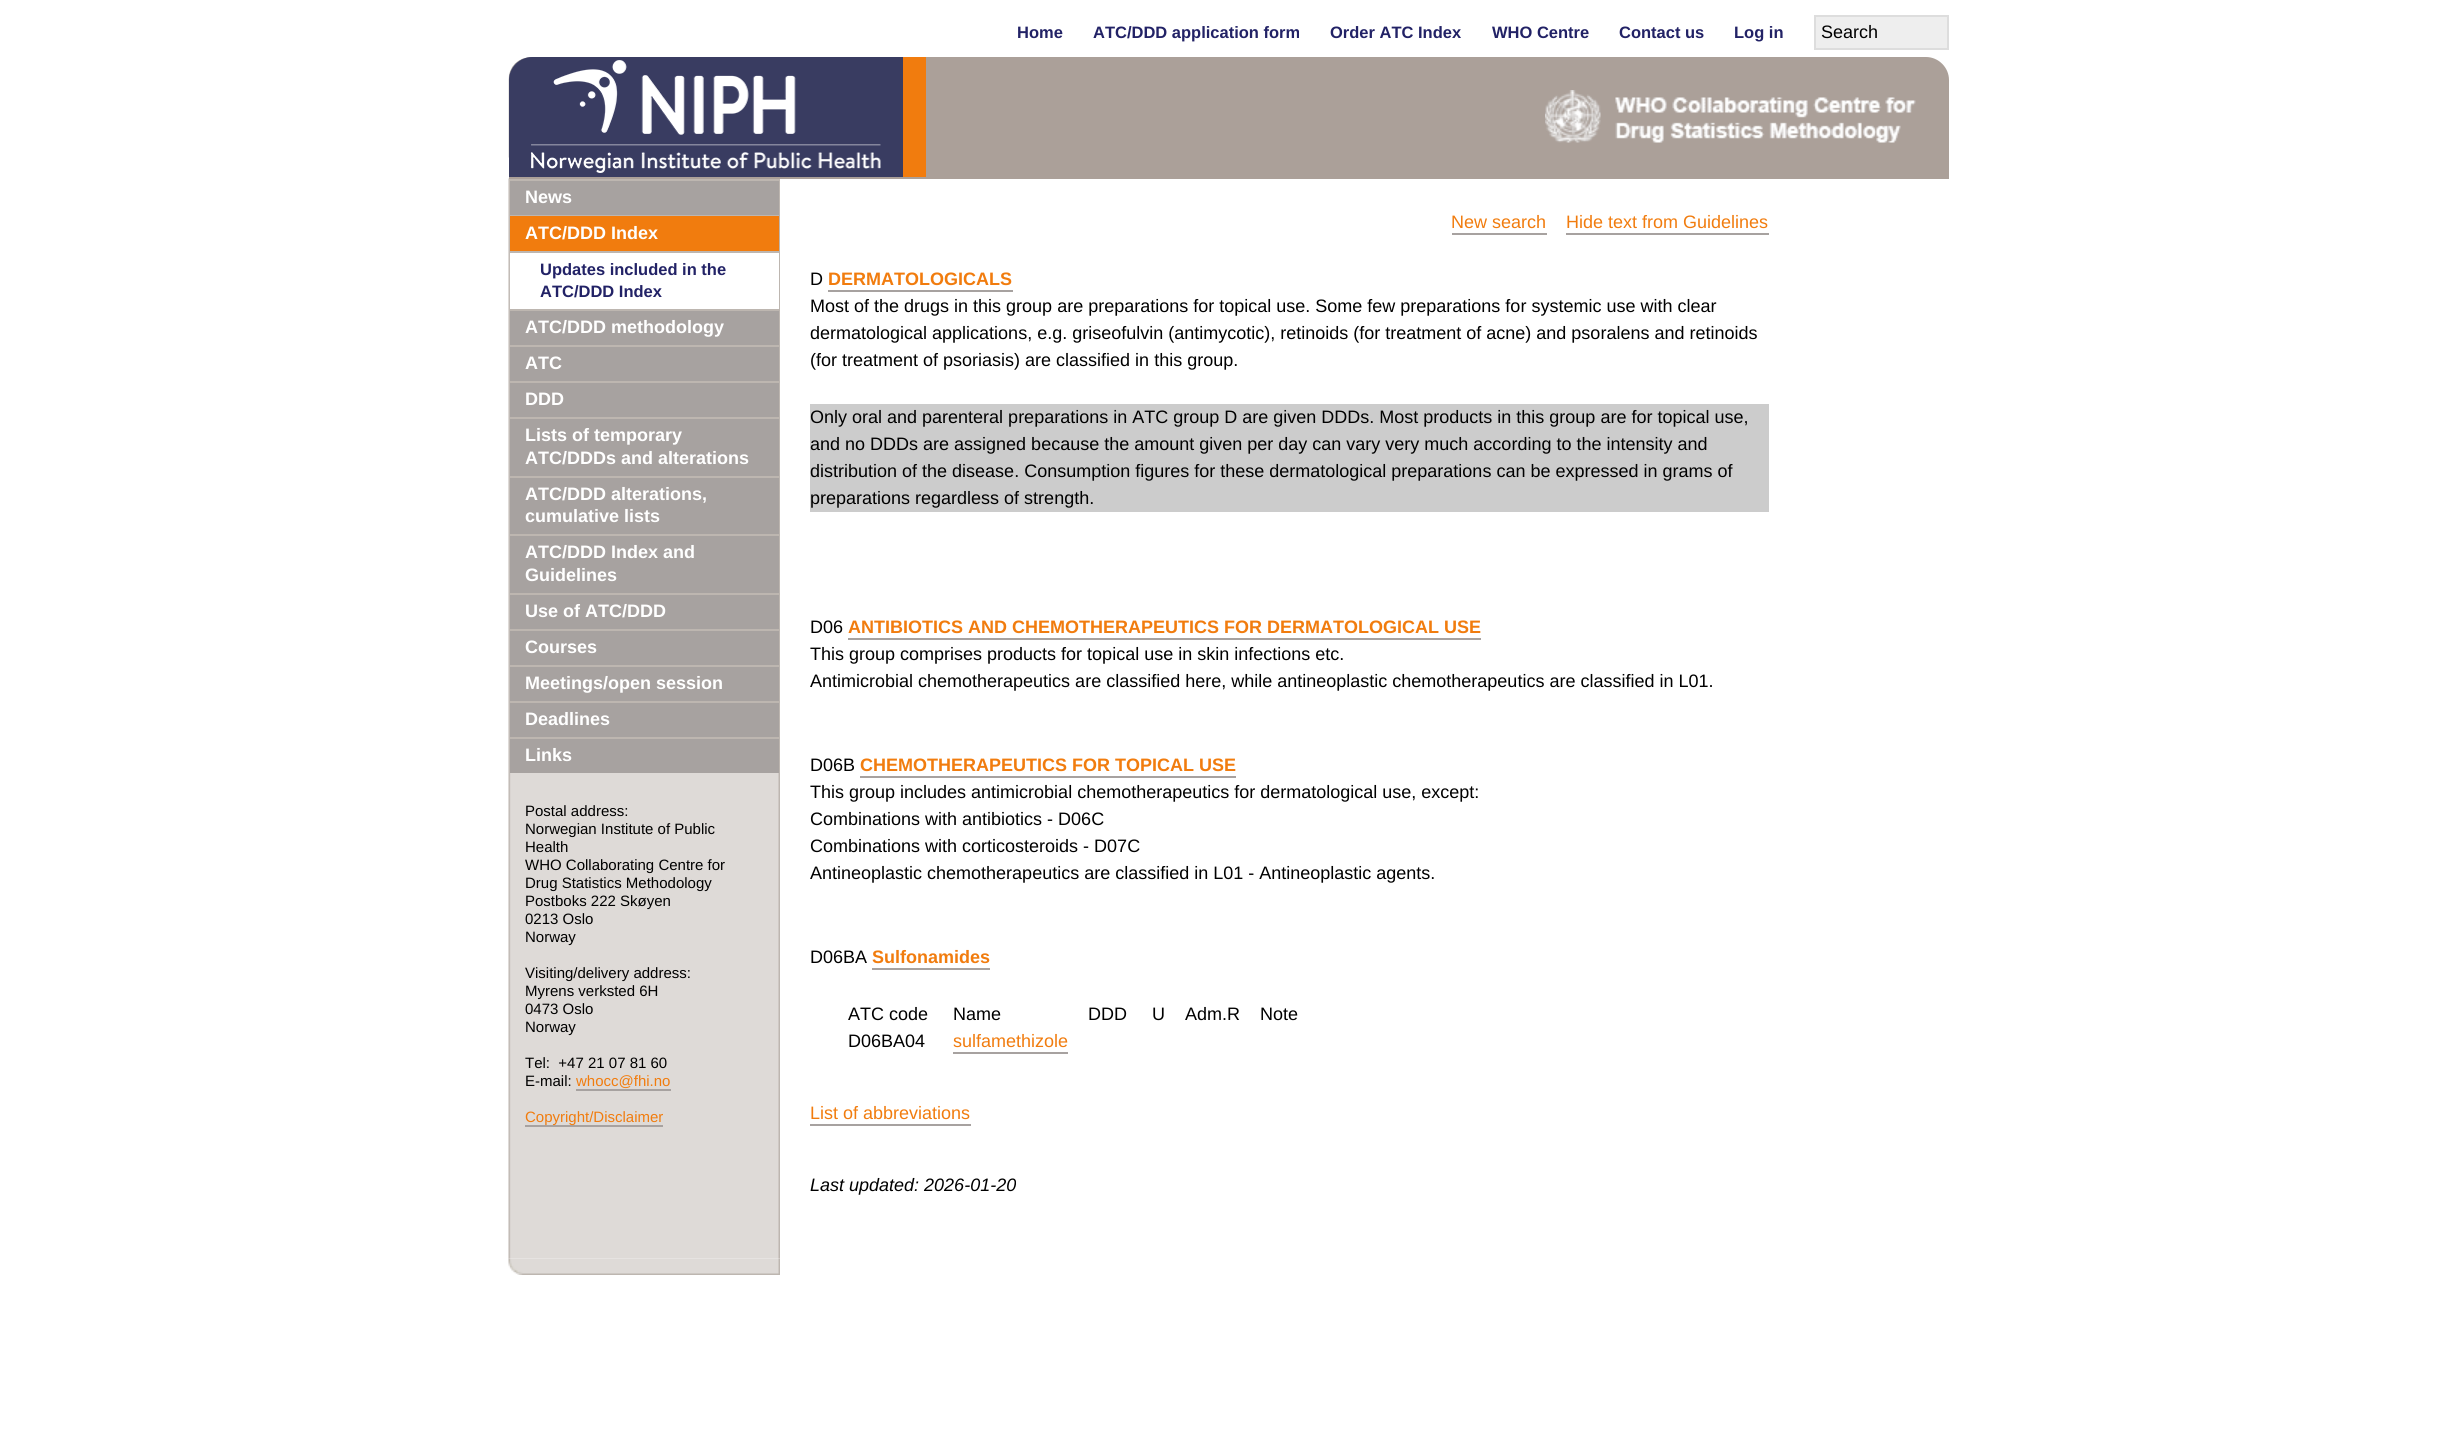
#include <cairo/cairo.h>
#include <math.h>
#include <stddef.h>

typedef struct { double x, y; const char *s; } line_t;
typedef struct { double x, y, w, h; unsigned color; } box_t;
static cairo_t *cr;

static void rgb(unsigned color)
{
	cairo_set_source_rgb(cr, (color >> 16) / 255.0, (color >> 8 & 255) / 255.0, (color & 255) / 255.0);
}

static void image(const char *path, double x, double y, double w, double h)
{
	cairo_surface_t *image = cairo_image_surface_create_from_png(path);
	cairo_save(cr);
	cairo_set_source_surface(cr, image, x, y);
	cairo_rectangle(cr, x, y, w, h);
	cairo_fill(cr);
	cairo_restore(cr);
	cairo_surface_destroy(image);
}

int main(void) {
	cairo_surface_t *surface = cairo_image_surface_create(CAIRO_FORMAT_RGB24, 2457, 1437);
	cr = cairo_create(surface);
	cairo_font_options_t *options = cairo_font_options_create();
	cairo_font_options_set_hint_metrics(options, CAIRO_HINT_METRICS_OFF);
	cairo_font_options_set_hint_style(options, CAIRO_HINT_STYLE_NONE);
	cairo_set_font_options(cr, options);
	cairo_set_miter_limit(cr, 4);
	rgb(0xffffff);
	cairo_paint(cr);
	rgb(0xeeeeee);
	cairo_rectangle(cr, 1815, 16, 133, 33);
	cairo_fill_preserve(cr);
	rgb(0xdddddd);
	cairo_stroke(cr);
	image("img/4.png", 508, 178, 272, 1081);
	rgb(0xaba099);
	cairo_new_path(cr);
	cairo_move_to(cr, 532, 57);
	cairo_line_to(cr, 1926, 57);
	cairo_curve_to(cr, 1938.5, 57, 1949, 67.5, 1949, 80);
	cairo_line_to(cr, 1949, 179);
	cairo_line_to(cr, 509, 179);
	cairo_line_to(cr, 509, 80);
	cairo_curve_to(cr, 509, 67.5, 519.5, 57, 532, 57);
	cairo_close_path(cr);
	cairo_fill(cr);
	image("img/1.png", 508, 58, 16, 100);
	rgb(0x393c61);
	cairo_new_path(cr);
	cairo_move_to(cr, 532, 57);
	cairo_line_to(cr, 926, 57);
	cairo_line_to(cr, 926, 177);
	cairo_line_to(cr, 509, 177);
	cairo_line_to(cr, 509, 80);
	cairo_curve_to(cr, 509, 67.5, 519.5, 57, 532, 57);
	cairo_close_path(cr);
	cairo_fill(cr);
	rgb(0xf17c0e);
	cairo_rectangle(cr, 903, 57, 23, 120);
	cairo_fill(cr);
	image("img/2.png", 531, 60, 350, 113);
	image("img/3.png", 1545, 90, 371, 53);
	{
		static const box_t items[] = {
			{510, 181, 269, 34, 0xa7a2a0},
			{510, 179, 269, 2, 0xbdb6b0},
			{510, 215, 269, 1, 0xbdb6b0},
			{510, 216, 269, 35, 0xf17c0e},
			{510, 253, 269, 56, 0xffffff},
			{510, 251, 269, 2, 0xbdb6b0},
			{510, 311, 269, 34, 0xa7a2a0},
			{510, 309, 269, 2, 0xbdb6b0},
			{510, 347, 269, 34, 0xa7a2a0},
			{510, 345, 269, 2, 0xbdb6b0},
			{510, 383, 269, 34, 0xa7a2a0},
			{510, 381, 269, 2, 0xbdb6b0},
			{510, 419, 269, 57, 0xa7a2a0},
			{510, 417, 269, 2, 0xbdb6b0},
			{510, 478, 269, 56, 0xa7a2a0},
			{510, 476, 269, 2, 0xbdb6b0},
			{510, 536, 269, 57, 0xa7a2a0},
			{510, 534, 269, 2, 0xbdb6b0},
			{510, 595, 269, 34, 0xa7a2a0},
			{510, 593, 269, 2, 0xbdb6b0},
			{510, 631, 269, 34, 0xa7a2a0},
			{510, 629, 269, 2, 0xbdb6b0},
			{510, 667, 269, 34, 0xa7a2a0},
			{510, 665, 269, 2, 0xbdb6b0},
			{510, 703, 269, 34, 0xa7a2a0},
			{510, 701, 269, 2, 0xbdb6b0},
			{510, 739, 269, 34, 0xa7a2a0},
			{510, 737, 269, 2, 0xbdb6b0},
			{576, 1089, 95, 2, 0xa7a2a0},
			{525, 1125, 138, 2, 0xa7a2a0},
			{1452, 233, 95, 2, 0xa7a2a0},
			{1566, 233, 203, 2, 0xa7a2a0},
			{828, 290, 185, 2, 0xa7a2a0},
			{810, 404, 959, 108, 0xcccccc},
			{848, 638, 633, 2, 0xa7a2a0},
			{860, 776, 376, 2, 0xa7a2a0},
			{872, 968, 118, 2, 0xa7a2a0},
			{953, 1052, 115, 2, 0xa7a2a0},
			{810, 1124, 161, 2, 0xa7a2a0},
		};
		for (size_t i = 0; i < sizeof items / sizeof *items; i++) {
			rgb(items[i].color);
			cairo_rectangle(cr, items[i].x, items[i].y, items[i].w, items[i].h);
			cairo_fill(cr);
		}
	}
	image("img/5.png", 508, 1258, 272, 17);
	cairo_select_font_face(cr, "Liberation Sans", CAIRO_FONT_SLANT_NORMAL, CAIRO_FONT_WEIGHT_BOLD);
	cairo_set_font_size(cr, 16.5);
	rgb(0x222266);
	{
		static const line_t items[] = {
			{1017, 38, "Home"},
			{1093, 38, "ATC/DDD application form"},
			{1330, 38, "Order ATC Index"},
			{1492, 38, "WHO Centre"},
			{1619, 38, "Contact us"},
			{1734, 38, "Log in"},
		};
		for (size_t i = 0; i < sizeof items / sizeof *items; i++) {
			cairo_move_to(cr, items[i].x, items[i].y);
			cairo_show_text(cr, items[i].s);
		}
	}
	cairo_select_font_face(cr, "Liberation Sans", CAIRO_FONT_SLANT_NORMAL, CAIRO_FONT_WEIGHT_NORMAL);
	cairo_set_font_size(cr, 18);
	rgb(0x000000);
	cairo_move_to(cr, 1821, 38);
	cairo_show_text(cr, "Search");
	cairo_select_font_face(cr, "Liberation Sans", CAIRO_FONT_SLANT_NORMAL, CAIRO_FONT_WEIGHT_BOLD);
	rgb(0xffffff);
	cairo_move_to(cr, 525, 203);
	cairo_show_text(cr, "News");
	cairo_move_to(cr, 525, 239);
	cairo_show_text(cr, "ATC/DDD Index");
	cairo_set_font_size(cr, 16.5);
	rgb(0x222266);
	cairo_move_to(cr, 540, 275);
	cairo_show_text(cr, "Updates included in the");
	cairo_move_to(cr, 540, 297);
	cairo_show_text(cr, "ATC/DDD Index");
	cairo_set_font_size(cr, 18);
	rgb(0xffffff);
	{
		static const line_t items[] = {
			{525, 333, "ATC/DDD methodology"},
			{525, 369, "ATC"},
			{525, 405, "DDD"},
			{525, 441, "Lists of temporary"},
			{525, 464, "ATC/DDDs and alterations"},
			{525, 500, "ATC/DDD alterations,"},
			{525, 522, "cumulative lists"},
			{525, 558, "ATC/DDD Index and"},
			{525, 581, "Guidelines"},
			{525, 617, "Use of ATC/DDD"},
			{525, 653, "Courses"},
			{525, 689, "Meetings/open session"},
			{525, 725, "Deadlines"},
			{525, 761, "Links"},
		};
		for (size_t i = 0; i < sizeof items / sizeof *items; i++) {
			cairo_move_to(cr, items[i].x, items[i].y);
			cairo_show_text(cr, items[i].s);
		}
	}
	cairo_select_font_face(cr, "Liberation Sans", CAIRO_FONT_SLANT_NORMAL, CAIRO_FONT_WEIGHT_NORMAL);
	cairo_set_font_size(cr, 15);
	rgb(0x000000);
	{
		static const line_t items[] = {
			{525, 816, "Postal address:"},
			{525, 834, "Norwegian Institute of Public"},
			{525, 852, "Health"},
			{525, 870, "WHO Collaborating Centre for"},
			{525, 888, "Drug Statistics Methodology"},
			{525, 906, "Postboks 222 Skøyen"},
			{525, 924, "0213 Oslo"},
			{525, 942, "Norway"},
			{525, 978, "Visiting/delivery address:"},
			{525, 996, "Myrens verksted 6H"},
			{525, 1014, "0473 Oslo"},
			{525, 1032, "Norway"},
			{525, 1068, "Tel:  +47 21 07 81 60"},
			{525, 1086, "E-mail:"},
		};
		for (size_t i = 0; i < sizeof items / sizeof *items; i++) {
			cairo_move_to(cr, items[i].x, items[i].y);
			cairo_show_text(cr, items[i].s);
		}
	}
	rgb(0xf17c0e);
	cairo_move_to(cr, 576, 1086);
	cairo_show_text(cr, "whocc@fhi.no");
	cairo_move_to(cr, 525, 1122);
	cairo_show_text(cr, "Copyright/Disclaimer");
	cairo_set_font_size(cr, 18);
	cairo_move_to(cr, 1451, 228);
	cairo_show_text(cr, "New search");
	cairo_move_to(cr, 1566, 228);
	cairo_show_text(cr, "Hide text from Guidelines");
	rgb(0x000000);
	cairo_move_to(cr, 810, 285);
	cairo_show_text(cr, "D");
	cairo_select_font_face(cr, "Liberation Sans", CAIRO_FONT_SLANT_NORMAL, CAIRO_FONT_WEIGHT_BOLD);
	rgb(0xf17c0e);
	cairo_move_to(cr, 828, 285);
	cairo_show_text(cr, "DERMATOLOGICALS");
	cairo_select_font_face(cr, "Liberation Sans", CAIRO_FONT_SLANT_NORMAL, CAIRO_FONT_WEIGHT_NORMAL);
	rgb(0x000000);
	{
		static const line_t items[] = {
			{810, 312, "Most of the drugs in this group are preparations for topical use. Some few preparations for systemic use with clear"},
			{810, 339, "dermatological applications, e.g. griseofulvin (antimycotic), retinoids (for treatment of acne) and psoralens and retinoids"},
			{810, 366, "(for treatment of psoriasis) are classified in this group."},
			{810, 423, "Only oral and parenteral preparations in ATC group D are given DDDs. Most products in this group are for topical use,"},
			{810, 450, "and no DDDs are assigned because the amount given per day can vary very much according to the intensity and"},
			{810, 477, "distribution of the disease. Consumption figures for these dermatological preparations can be expressed in grams of"},
			{810, 504, "preparations regardless of strength."},
			{810, 633, "D06"},
		};
		for (size_t i = 0; i < sizeof items / sizeof *items; i++) {
			cairo_move_to(cr, items[i].x, items[i].y);
			cairo_show_text(cr, items[i].s);
		}
	}
	cairo_select_font_face(cr, "Liberation Sans", CAIRO_FONT_SLANT_NORMAL, CAIRO_FONT_WEIGHT_BOLD);
	rgb(0xf17c0e);
	cairo_move_to(cr, 848, 633);
	cairo_show_text(cr, "ANTIBIOTICS AND CHEMOTHERAPEUTICS FOR DERMATOLOGICAL USE");
	cairo_select_font_face(cr, "Liberation Sans", CAIRO_FONT_SLANT_NORMAL, CAIRO_FONT_WEIGHT_NORMAL);
	rgb(0x000000);
	{
		static const line_t items[] = {
			{810, 660, "This group comprises products for topical use in skin infections etc."},
			{810, 687, "Antimicrobial chemotherapeutics are classified here, while antineoplastic chemotherapeutics are classified in L01."},
			{810, 771, "D06B"},
		};
		for (size_t i = 0; i < sizeof items / sizeof *items; i++) {
			cairo_move_to(cr, items[i].x, items[i].y);
			cairo_show_text(cr, items[i].s);
		}
	}
	cairo_select_font_face(cr, "Liberation Sans", CAIRO_FONT_SLANT_NORMAL, CAIRO_FONT_WEIGHT_BOLD);
	rgb(0xf17c0e);
	cairo_move_to(cr, 860, 771);
	cairo_show_text(cr, "CHEMOTHERAPEUTICS FOR TOPICAL USE");
	cairo_select_font_face(cr, "Liberation Sans", CAIRO_FONT_SLANT_NORMAL, CAIRO_FONT_WEIGHT_NORMAL);
	rgb(0x000000);
	{
		static const line_t items[] = {
			{810, 798, "This group includes antimicrobial chemotherapeutics for dermatological use, except:"},
			{810, 825, "Combinations with antibiotics - D06C"},
			{810, 852, "Combinations with corticosteroids - D07C"},
			{810, 879, "Antineoplastic chemotherapeutics are classified in L01 - Antineoplastic agents."},
			{810, 963, "D06BA"},
		};
		for (size_t i = 0; i < sizeof items / sizeof *items; i++) {
			cairo_move_to(cr, items[i].x, items[i].y);
			cairo_show_text(cr, items[i].s);
		}
	}
	cairo_select_font_face(cr, "Liberation Sans", CAIRO_FONT_SLANT_NORMAL, CAIRO_FONT_WEIGHT_BOLD);
	rgb(0xf17c0e);
	cairo_move_to(cr, 872, 963);
	cairo_show_text(cr, "Sulfonamides");
	cairo_select_font_face(cr, "Liberation Sans", CAIRO_FONT_SLANT_NORMAL, CAIRO_FONT_WEIGHT_NORMAL);
	rgb(0x000000);
	{
		static const line_t items[] = {
			{848, 1020, "ATC code"},
			{953, 1020, "Name"},
			{1088, 1020, "DDD"},
			{1152, 1020, "U"},
			{1185, 1020, "Adm.R"},
			{1260, 1020, "Note"},
			{848, 1047, "D06BA04"},
		};
		for (size_t i = 0; i < sizeof items / sizeof *items; i++) {
			cairo_move_to(cr, items[i].x, items[i].y);
			cairo_show_text(cr, items[i].s);
		}
	}
	rgb(0xf17c0e);
	cairo_move_to(cr, 953, 1047);
	cairo_show_text(cr, "sulfamethizole");
	cairo_move_to(cr, 810, 1119);
	cairo_show_text(cr, "List of abbreviations");
	cairo_select_font_face(cr, "Liberation Sans", CAIRO_FONT_SLANT_ITALIC, CAIRO_FONT_WEIGHT_NORMAL);
	rgb(0x000000);
	cairo_move_to(cr, 810, 1191);
	cairo_show_text(cr, "Last updated: 2026-01-20");
	cairo_surface_write_to_png(surface, "page.png");
	cairo_font_options_destroy(options);
	cairo_destroy(cr);
	cairo_surface_destroy(surface);
	return 0;
}
